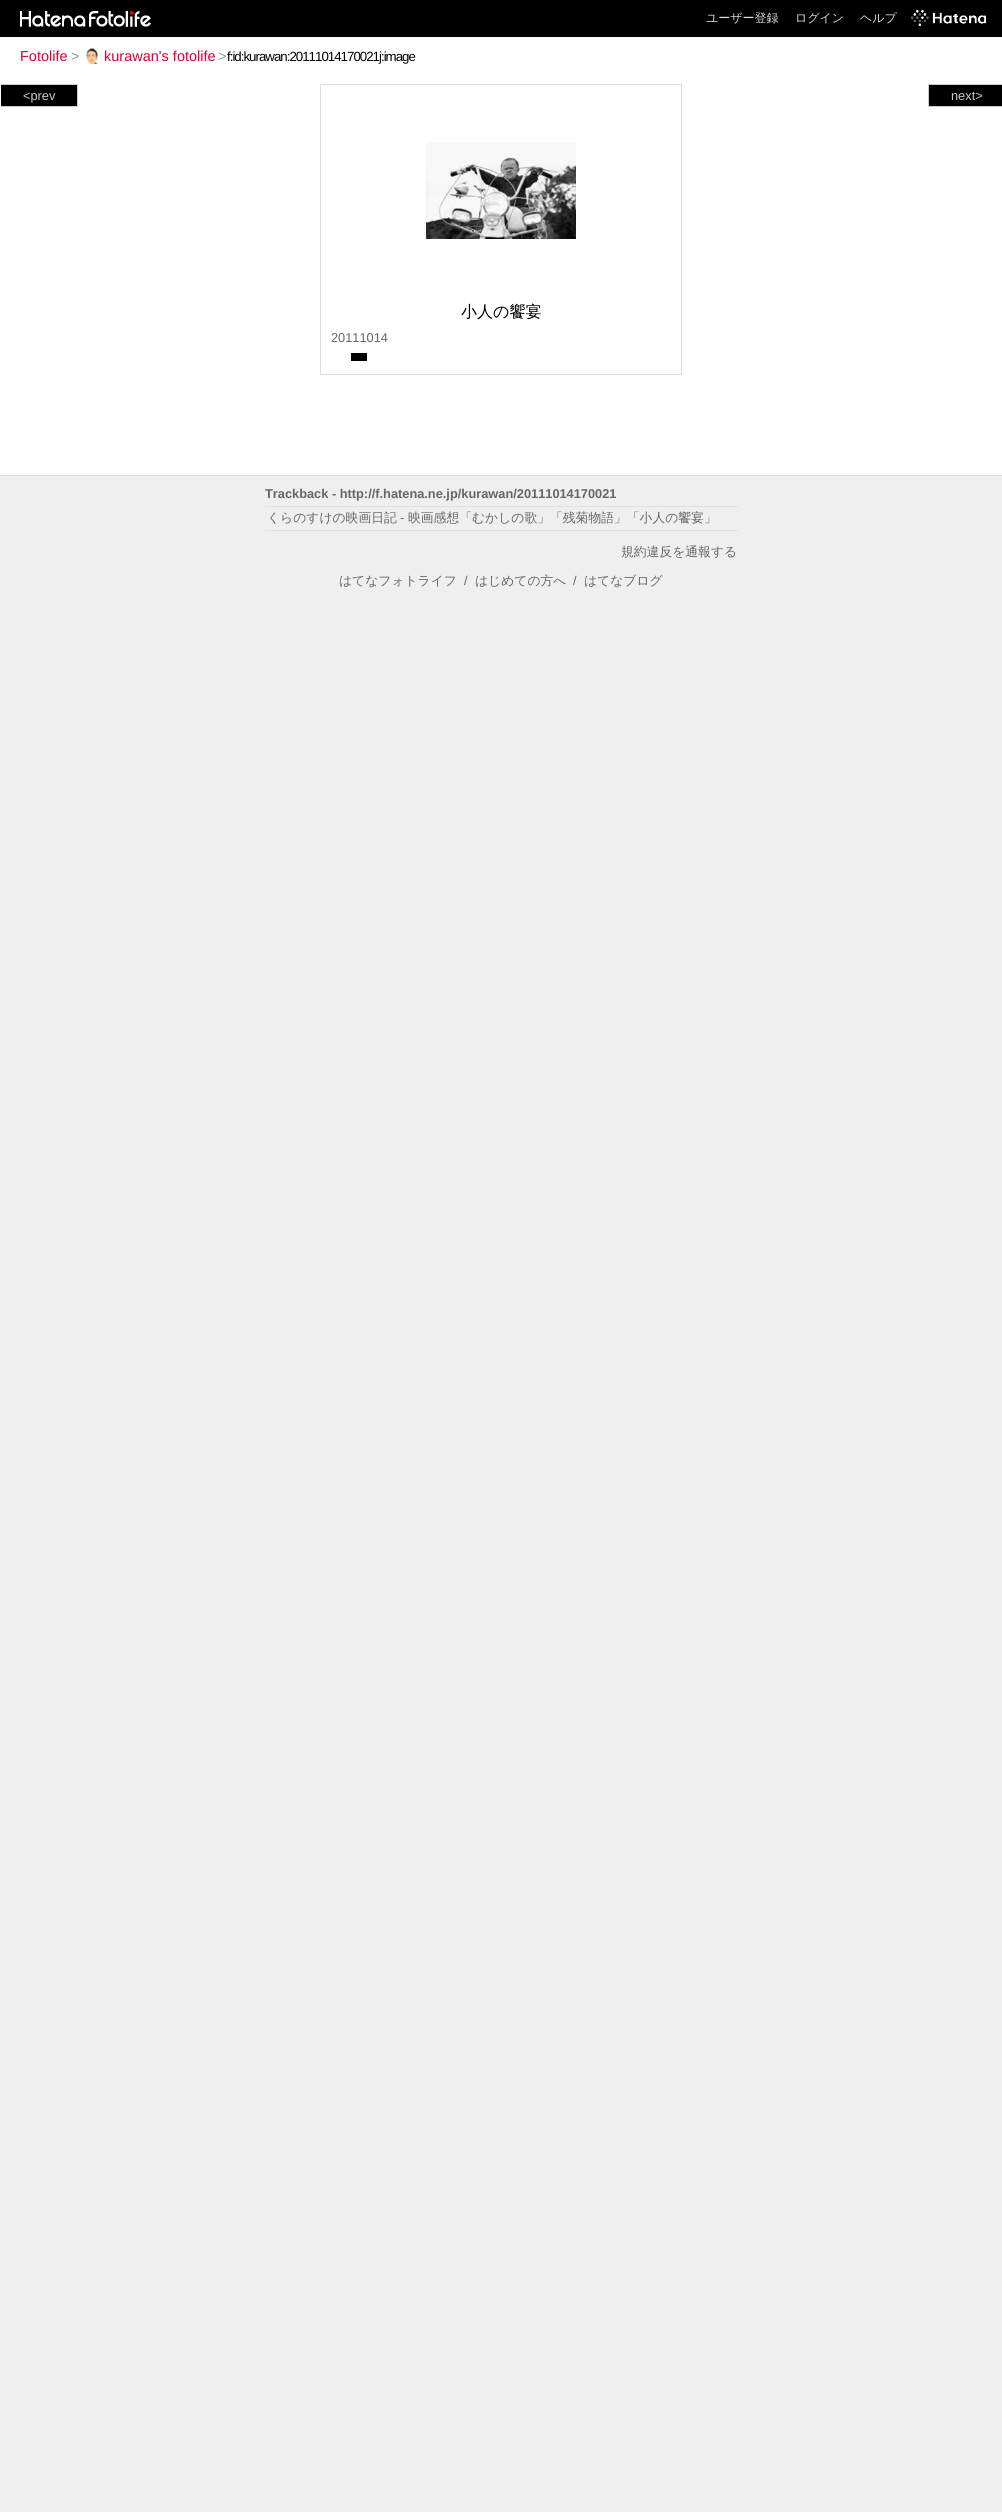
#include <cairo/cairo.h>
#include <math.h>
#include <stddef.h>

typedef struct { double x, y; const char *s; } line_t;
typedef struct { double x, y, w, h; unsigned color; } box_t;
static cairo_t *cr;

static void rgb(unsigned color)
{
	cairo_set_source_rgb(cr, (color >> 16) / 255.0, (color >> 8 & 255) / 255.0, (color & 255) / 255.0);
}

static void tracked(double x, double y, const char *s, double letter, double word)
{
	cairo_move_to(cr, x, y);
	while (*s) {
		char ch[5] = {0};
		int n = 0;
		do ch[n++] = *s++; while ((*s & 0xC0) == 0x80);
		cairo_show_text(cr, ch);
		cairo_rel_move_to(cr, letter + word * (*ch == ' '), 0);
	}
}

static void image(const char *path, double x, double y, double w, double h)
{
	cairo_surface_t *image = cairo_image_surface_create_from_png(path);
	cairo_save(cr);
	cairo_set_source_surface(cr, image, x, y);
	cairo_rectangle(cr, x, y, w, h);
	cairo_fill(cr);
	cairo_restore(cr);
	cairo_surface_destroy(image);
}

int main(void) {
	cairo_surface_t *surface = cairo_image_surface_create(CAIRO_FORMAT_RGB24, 1002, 2512);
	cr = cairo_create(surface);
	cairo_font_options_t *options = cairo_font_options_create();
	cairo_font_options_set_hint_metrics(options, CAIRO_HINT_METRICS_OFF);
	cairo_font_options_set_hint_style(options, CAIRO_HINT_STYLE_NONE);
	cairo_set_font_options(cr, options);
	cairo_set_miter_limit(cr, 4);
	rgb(0xefefef);
	cairo_paint(cr);
	rgb(0x000000);
	cairo_rectangle(cr, 0, 0, 1002, 37);
	cairo_fill(cr);
	image("img/1.png", 20, 11, 66, 16);
	image("img/2.png", 89, 11, 62, 16);
	image("img/3.png", 911, 10, 75, 16);
	rgb(0xffffff);
	cairo_rectangle(cr, 0, 37, 1002, 438);
	cairo_fill(cr);
	image("img/4.png", 86, 48, 12, 16);
	{
		static const box_t items[] = {
			{0, 475, 1002, 1, 0xdedede},
			{1, 85, 76, 21, 0x000000},
			{1, 84, 77, 1, 0xcccccc},
			{77, 84, 1, 23, 0xcccccc},
			{1, 106, 77, 1, 0xcccccc},
			{929, 85, 73, 21, 0x000000},
			{928, 84, 74, 1, 0xcccccc},
			{928, 106, 74, 1, 0xcccccc},
			{928, 84, 1, 23, 0xcccccc},
		};
		for (size_t i = 0; i < sizeof items / sizeof *items; i++) {
			rgb(items[i].color);
			cairo_rectangle(cr, items[i].x, items[i].y, items[i].w, items[i].h);
			cairo_fill(cr);
		}
	}
	cairo_rectangle(cr, 320.5, 84.5, 361, 290);
	rgb(0xdedede);
	cairo_set_line_width(cr, 1);
	cairo_stroke(cr);
	image("img/5.png", 426, 142, 150, 97);
	{
		static const box_t items[] = {
			{351, 353, 16, 8, 0x000000},
			{265, 506, 473, 1, 0xe1e1e1},
			{265, 530, 473, 1, 0xe1e1e1},
		};
		for (size_t i = 0; i < sizeof items / sizeof *items; i++) {
			rgb(items[i].color);
			cairo_rectangle(cr, items[i].x, items[i].y, items[i].w, items[i].h);
			cairo_fill(cr);
		}
	}
	cairo_select_font_face(cr, "WenQuanYi Zen Hei Medium", CAIRO_FONT_SLANT_NORMAL, CAIRO_FONT_WEIGHT_NORMAL);
	cairo_set_font_size(cr, 12);
	rgb(0xdddddd);
	{
		static const line_t items[] = {
			{706, 22, "ユーザー登録"},
			{795, 22, "ログイン"},
			{860, 22, "ヘルプ"},
		};
		for (size_t i = 0; i < sizeof items / sizeof *items; i++) {
			cairo_move_to(cr, items[i].x, items[i].y);
			cairo_show_text(cr, items[i].s);
		}
	}
	cairo_select_font_face(cr, "Liberation Sans", CAIRO_FONT_SLANT_NORMAL, CAIRO_FONT_WEIGHT_NORMAL);
	cairo_set_font_size(cr, 14.5);
	rgb(0xde002f);
	cairo_move_to(cr, 20, 61);
	cairo_show_text(cr, "Fotolife");
	rgb(0x999999);
	cairo_move_to(cr, 71, 61);
	cairo_show_text(cr, ">");
	rgb(0xde002f);
	cairo_move_to(cr, 104, 61);
	cairo_show_text(cr, "kurawan's fotolife");
	rgb(0x999999);
	cairo_move_to(cr, 218, 61);
	cairo_show_text(cr, ">");
	cairo_set_font_size(cr, 13.3);
	rgb(0x000000);
	tracked(227, 61, "f:id:kurawan:20111014170021j:image", -1, 0);
	cairo_set_font_size(cr, 12.8);
	rgb(0xcccccc);
	cairo_move_to(cr, 23, 100);
	cairo_show_text(cr, "<prev");
	cairo_move_to(cr, 951, 100);
	cairo_show_text(cr, "next>");
	cairo_select_font_face(cr, "WenQuanYi Zen Hei Medium", CAIRO_FONT_SLANT_NORMAL, CAIRO_FONT_WEIGHT_NORMAL);
	cairo_set_font_size(cr, 16);
	rgb(0x000000);
	cairo_move_to(cr, 461, 317);
	cairo_show_text(cr, "小人の饗宴");
	cairo_select_font_face(cr, "Liberation Sans", CAIRO_FONT_SLANT_NORMAL, CAIRO_FONT_WEIGHT_NORMAL);
	cairo_set_font_size(cr, 12.8);
	rgb(0x666666);
	cairo_move_to(cr, 331, 342);
	cairo_show_text(cr, "20111014");
	cairo_select_font_face(cr, "Liberation Sans", CAIRO_FONT_SLANT_NORMAL, CAIRO_FONT_WEIGHT_BOLD);
	cairo_move_to(cr, 265, 498);
	cairo_show_text(cr, "Trackback - http://f.hatena.ne.jp/kurawan/20111014170021");
	cairo_select_font_face(cr, "WenQuanYi Zen Hei Medium", CAIRO_FONT_SLANT_NORMAL, CAIRO_FONT_WEIGHT_NORMAL);
	cairo_move_to(cr, 267, 522);
	cairo_show_text(cr, "くらのすけの映画日記");
	cairo_select_font_face(cr, "Liberation Sans", CAIRO_FONT_SLANT_NORMAL, CAIRO_FONT_WEIGHT_NORMAL);
	cairo_move_to(cr, 400, 522);
	cairo_show_text(cr, "-");
	cairo_select_font_face(cr, "WenQuanYi Zen Hei Medium", CAIRO_FONT_SLANT_NORMAL, CAIRO_FONT_WEIGHT_NORMAL);
	{
		static const line_t items[] = {
			{408, 522, "映画感想「むかしの歌」「残菊物語」「小人の饗宴」"},
			{621, 556, "規約違反を通報する"},
			{339, 585, "はてなフォトライフ"},
		};
		for (size_t i = 0; i < sizeof items / sizeof *items; i++) {
			cairo_move_to(cr, items[i].x, items[i].y);
			cairo_show_text(cr, items[i].s);
		}
	}
	cairo_select_font_face(cr, "Liberation Sans", CAIRO_FONT_SLANT_NORMAL, CAIRO_FONT_WEIGHT_NORMAL);
	cairo_move_to(cr, 464, 585);
	cairo_show_text(cr, "/");
	cairo_select_font_face(cr, "WenQuanYi Zen Hei Medium", CAIRO_FONT_SLANT_NORMAL, CAIRO_FONT_WEIGHT_NORMAL);
	cairo_move_to(cr, 475, 585);
	cairo_show_text(cr, "はじめての方へ");
	cairo_select_font_face(cr, "Liberation Sans", CAIRO_FONT_SLANT_NORMAL, CAIRO_FONT_WEIGHT_NORMAL);
	cairo_move_to(cr, 573, 585);
	cairo_show_text(cr, "/");
	cairo_select_font_face(cr, "WenQuanYi Zen Hei Medium", CAIRO_FONT_SLANT_NORMAL, CAIRO_FONT_WEIGHT_NORMAL);
	cairo_move_to(cr, 584, 585);
	cairo_show_text(cr, "はてなブログ");
	cairo_surface_write_to_png(surface, "page.png");
	cairo_font_options_destroy(options);
	cairo_destroy(cr);
	cairo_surface_destroy(surface);
	return 0;
}
